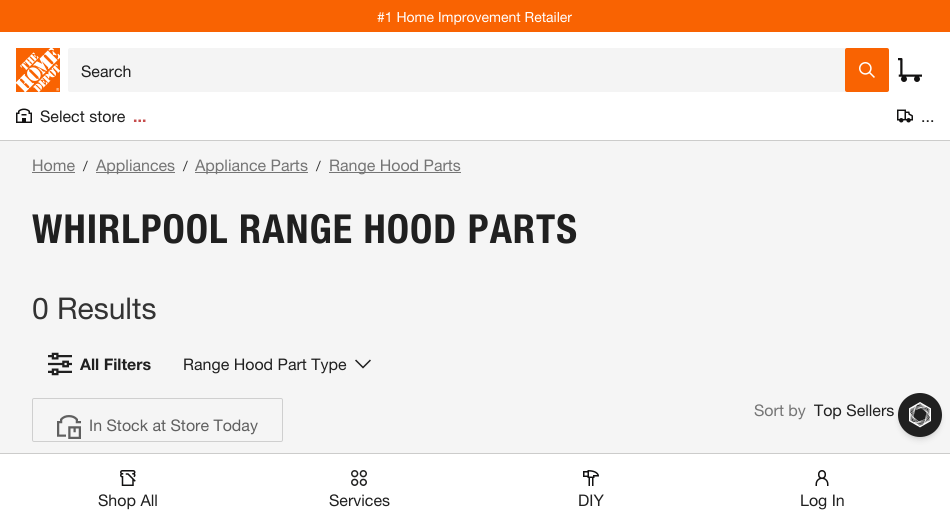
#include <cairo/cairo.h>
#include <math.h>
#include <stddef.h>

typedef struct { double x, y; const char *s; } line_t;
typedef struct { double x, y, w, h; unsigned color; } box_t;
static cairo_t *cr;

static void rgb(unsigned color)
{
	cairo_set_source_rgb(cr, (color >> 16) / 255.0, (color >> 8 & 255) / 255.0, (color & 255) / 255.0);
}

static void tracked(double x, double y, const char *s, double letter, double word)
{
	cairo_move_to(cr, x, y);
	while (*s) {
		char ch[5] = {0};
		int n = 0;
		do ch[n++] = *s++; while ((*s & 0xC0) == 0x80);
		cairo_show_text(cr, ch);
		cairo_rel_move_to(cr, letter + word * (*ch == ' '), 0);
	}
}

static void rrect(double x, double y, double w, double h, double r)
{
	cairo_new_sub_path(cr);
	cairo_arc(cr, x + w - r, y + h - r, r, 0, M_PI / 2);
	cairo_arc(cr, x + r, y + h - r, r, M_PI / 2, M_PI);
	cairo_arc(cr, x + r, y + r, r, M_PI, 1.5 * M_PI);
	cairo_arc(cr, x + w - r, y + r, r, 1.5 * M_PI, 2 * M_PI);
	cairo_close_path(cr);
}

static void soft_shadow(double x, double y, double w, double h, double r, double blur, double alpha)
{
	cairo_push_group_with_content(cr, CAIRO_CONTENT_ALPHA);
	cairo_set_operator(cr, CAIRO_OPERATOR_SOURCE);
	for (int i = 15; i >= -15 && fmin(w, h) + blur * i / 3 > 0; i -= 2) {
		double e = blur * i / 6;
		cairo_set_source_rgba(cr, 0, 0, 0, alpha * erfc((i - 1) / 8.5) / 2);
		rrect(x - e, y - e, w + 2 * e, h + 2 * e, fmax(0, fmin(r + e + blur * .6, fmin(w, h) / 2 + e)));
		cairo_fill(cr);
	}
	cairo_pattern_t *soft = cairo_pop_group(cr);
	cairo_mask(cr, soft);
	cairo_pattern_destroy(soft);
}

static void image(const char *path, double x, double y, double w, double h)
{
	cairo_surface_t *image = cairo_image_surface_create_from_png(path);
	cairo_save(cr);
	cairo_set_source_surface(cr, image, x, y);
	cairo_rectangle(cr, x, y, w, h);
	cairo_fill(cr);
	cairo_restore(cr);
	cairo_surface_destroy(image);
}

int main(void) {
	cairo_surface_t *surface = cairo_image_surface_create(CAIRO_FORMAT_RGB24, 950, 526);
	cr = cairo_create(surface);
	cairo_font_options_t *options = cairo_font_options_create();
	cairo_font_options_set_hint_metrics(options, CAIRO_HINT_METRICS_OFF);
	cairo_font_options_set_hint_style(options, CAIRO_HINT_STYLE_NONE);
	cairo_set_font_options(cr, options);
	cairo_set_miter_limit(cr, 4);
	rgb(0xffffff);
	cairo_paint(cr);
	rgb(0xf96302);
	cairo_rectangle(cr, 0, 0, 950, 32);
	cairo_fill(cr);
	rgb(0xcccccb);
	cairo_rectangle(cr, 0, 140, 950, 1);
	cairo_fill(cr);
	image("img/1.png", 16, 48, 44, 44);
	rgb(0xf4f4f4);
	rrect(68, 48, 821, 44, 2);
	cairo_fill(cr);
	rgb(0xf96302);
	rrect(845, 48, 44, 44, 2);
	cairo_fill(cr);
	image("img/2.png", 859, 62, 16, 16);
	image("img/3.png", 898, 58, 24, 24);
	image("img/4.png", 16, 108, 16, 15);
	image("img/5.png", 897, 109, 16, 14);
	rgb(0xcccccb);
	cairo_rectangle(cr, 0, 453, 950, 1);
	cairo_fill(cr);
	image("img/6.png", 120, 470, 16, 16);
	image("img/7.png", 351, 470, 16, 16);
	image("img/8.png", 583, 470, 16, 16);
	image("img/9.png", 815, 470, 14, 16);
	{
		static const box_t items[] = {
			{0, 141, 950, 312, 0xf5f5f5},
			{32, 172, 43, 1, 0x757575},
			{96, 172, 79, 1, 0x757575},
			{195, 172, 113, 1, 0x757575},
			{329, 172, 132, 1, 0x757575},
		};
		for (size_t i = 0; i < sizeof items / sizeof *items; i++) {
			rgb(items[i].color);
			cairo_rectangle(cr, items[i].x, items[i].y, items[i].w, items[i].h);
			cairo_fill(cr);
		}
	}
	image("img/10.png", 48, 352, 24, 24);
	image("img/11.png", 355, 359, 16, 10);
	rrect(32.5, 398.5, 250, 43, 1.5);
	rgb(0xcfcfcf);
	cairo_set_line_width(cr, 1);
	cairo_stroke(cr);
	image("img/12.png", 57, 415, 24, 24);
	rgb(0x000000);
	soft_shadow(900, 397, 40, 40, 20, 2, 0.1);
	soft_shadow(899, 398, 42, 42, 21, 3, 0.1);
	rgb(0x202020);
	cairo_arc(cr, 920, 415, 22, 0, 2 * M_PI);
	cairo_fill(cr);
	image("img/13.png", 909, 402, 22, 26);
	cairo_select_font_face(cr, "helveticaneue", CAIRO_FONT_SLANT_NORMAL, CAIRO_FONT_WEIGHT_NORMAL);
	cairo_set_font_size(cr, 14);
	rgb(0xffffff);
	cairo_move_to(cr, 377, 22);
	cairo_show_text(cr, "#1 Home Improvement Retailer");
	cairo_set_font_size(cr, 16);
	rgb(0x202020);
	cairo_move_to(cr, 81, 77);
	cairo_show_text(cr, "Search");
	cairo_move_to(cr, 40, 122);
	cairo_show_text(cr, "Select store");
	cairo_select_font_face(cr, "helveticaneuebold", CAIRO_FONT_SLANT_NORMAL, CAIRO_FONT_WEIGHT_BOLD);
	rgb(0xc64c4c);
	cairo_move_to(cr, 133, 122);
	cairo_show_text(cr, "...");
	cairo_select_font_face(cr, "helveticaneue", CAIRO_FONT_SLANT_NORMAL, CAIRO_FONT_WEIGHT_NORMAL);
	rgb(0x202020);
	{
		static const line_t items[] = {
			{921, 122, "..."},
			{98, 506, "Shop All"},
			{329, 506, "Services"},
			{578, 506, "DIY"},
			{800, 506, "Log In"},
		};
		for (size_t i = 0; i < sizeof items / sizeof *items; i++) {
			cairo_move_to(cr, items[i].x, items[i].y);
			cairo_show_text(cr, items[i].s);
		}
	}
	rgb(0x757575);
	cairo_move_to(cr, 32, 171);
	cairo_show_text(cr, "Home");
	cairo_set_font_size(cr, 14);
	rgb(0x333333);
	cairo_move_to(cr, 83, 171);
	cairo_show_text(cr, "/");
	cairo_set_font_size(cr, 16);
	rgb(0x757575);
	cairo_move_to(cr, 96, 171);
	cairo_show_text(cr, "Appliances");
	cairo_set_font_size(cr, 14);
	rgb(0x333333);
	cairo_move_to(cr, 183, 171);
	cairo_show_text(cr, "/");
	cairo_set_font_size(cr, 16);
	rgb(0x757575);
	cairo_move_to(cr, 195, 171);
	cairo_show_text(cr, "Appliance Parts");
	cairo_set_font_size(cr, 14);
	rgb(0x333333);
	cairo_move_to(cr, 316, 171);
	cairo_show_text(cr, "/");
	cairo_set_font_size(cr, 16);
	rgb(0x757575);
	cairo_move_to(cr, 329, 171);
	cairo_show_text(cr, "Range Hood Parts");
	cairo_select_font_face(cr, "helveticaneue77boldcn", CAIRO_FONT_SLANT_NORMAL, CAIRO_FONT_WEIGHT_BOLD);
	cairo_set_font_size(cr, 40);
	rgb(0x202020);
	tracked(32, 243, "WHIRLPOOL RANGE HOOD PARTS", 1, 0);
	cairo_select_font_face(cr, "helveticaneue", CAIRO_FONT_SLANT_NORMAL, CAIRO_FONT_WEIGHT_NORMAL);
	cairo_set_font_size(cr, 30);
	rgb(0x333333);
	cairo_move_to(cr, 32, 319);
	cairo_show_text(cr, "0 Results");
	cairo_select_font_face(cr, "helveticaneuebold", CAIRO_FONT_SLANT_NORMAL, CAIRO_FONT_WEIGHT_BOLD);
	cairo_set_font_size(cr, 16);
	rgb(0x202020);
	cairo_move_to(cr, 80, 370);
	cairo_show_text(cr, "All Filters");
	cairo_select_font_face(cr, "helveticaneue", CAIRO_FONT_SLANT_NORMAL, CAIRO_FONT_WEIGHT_NORMAL);
	cairo_move_to(cr, 183, 370);
	cairo_show_text(cr, "Range Hood Part Type");
	rgb(0x757575);
	cairo_move_to(cr, 754, 416);
	cairo_show_text(cr, "Sort by");
	rgb(0x202020);
	cairo_move_to(cr, 814, 416);
	cairo_show_text(cr, "Top Sellers");
	rgb(0x606060);
	cairo_move_to(cr, 89, 431);
	cairo_show_text(cr, "In Stock at Store Today");
	cairo_surface_write_to_png(surface, "page.png");
	cairo_font_options_destroy(options);
	cairo_destroy(cr);
	cairo_surface_destroy(surface);
	return 0;
}
